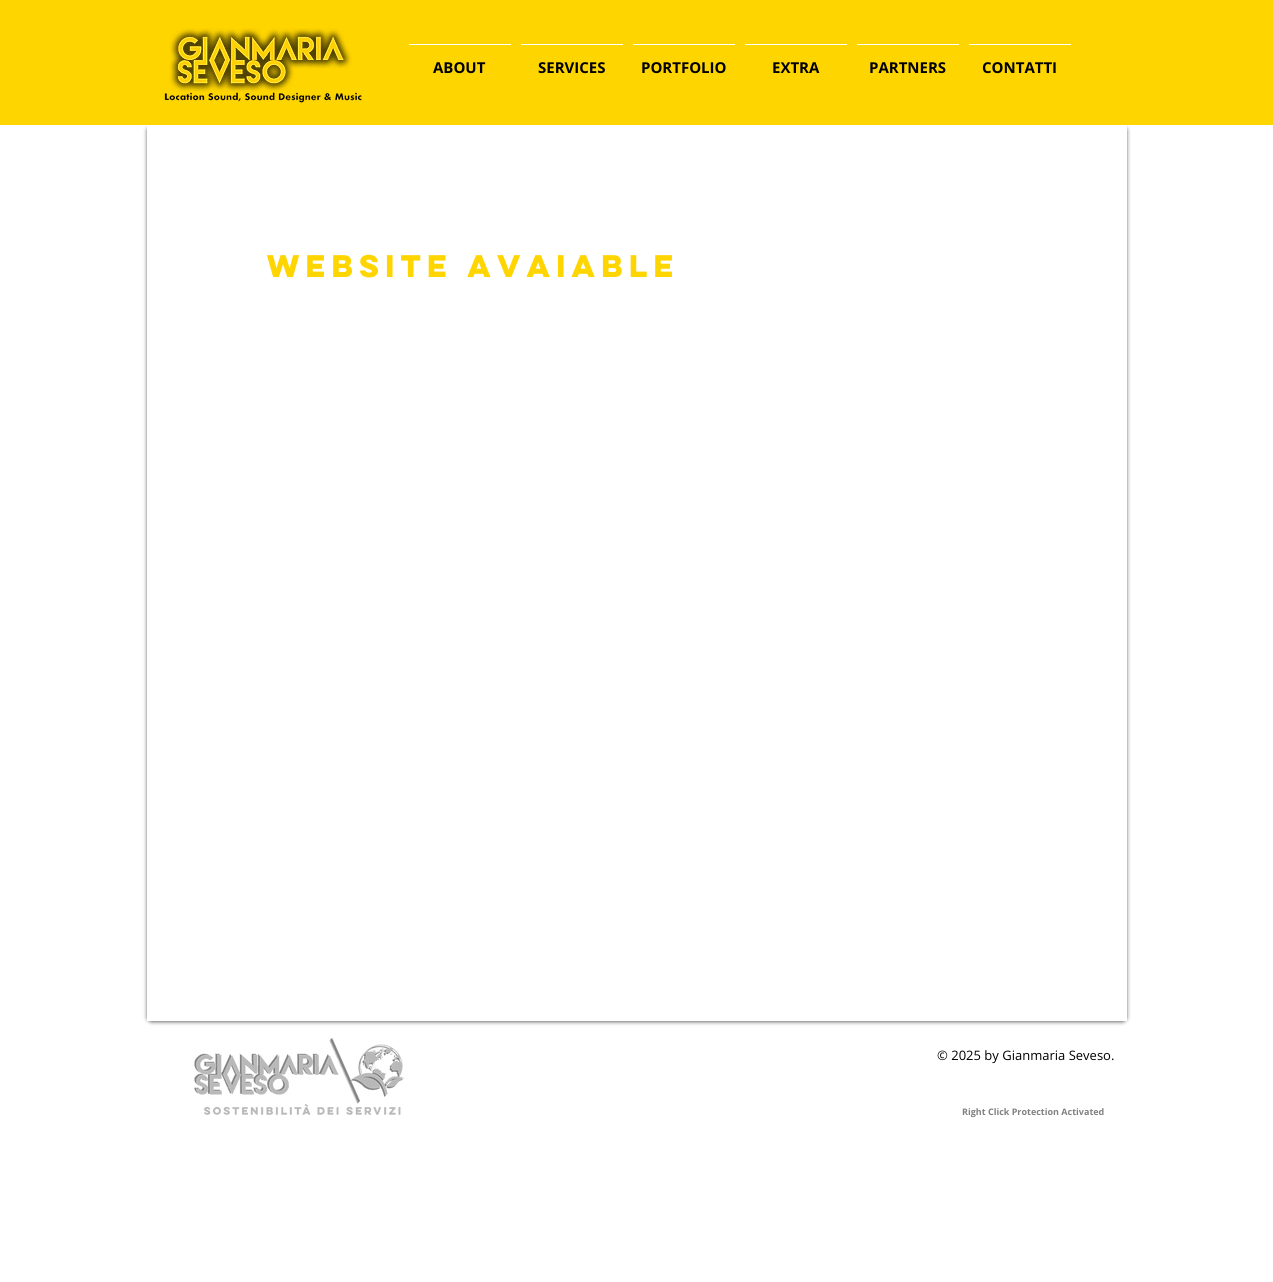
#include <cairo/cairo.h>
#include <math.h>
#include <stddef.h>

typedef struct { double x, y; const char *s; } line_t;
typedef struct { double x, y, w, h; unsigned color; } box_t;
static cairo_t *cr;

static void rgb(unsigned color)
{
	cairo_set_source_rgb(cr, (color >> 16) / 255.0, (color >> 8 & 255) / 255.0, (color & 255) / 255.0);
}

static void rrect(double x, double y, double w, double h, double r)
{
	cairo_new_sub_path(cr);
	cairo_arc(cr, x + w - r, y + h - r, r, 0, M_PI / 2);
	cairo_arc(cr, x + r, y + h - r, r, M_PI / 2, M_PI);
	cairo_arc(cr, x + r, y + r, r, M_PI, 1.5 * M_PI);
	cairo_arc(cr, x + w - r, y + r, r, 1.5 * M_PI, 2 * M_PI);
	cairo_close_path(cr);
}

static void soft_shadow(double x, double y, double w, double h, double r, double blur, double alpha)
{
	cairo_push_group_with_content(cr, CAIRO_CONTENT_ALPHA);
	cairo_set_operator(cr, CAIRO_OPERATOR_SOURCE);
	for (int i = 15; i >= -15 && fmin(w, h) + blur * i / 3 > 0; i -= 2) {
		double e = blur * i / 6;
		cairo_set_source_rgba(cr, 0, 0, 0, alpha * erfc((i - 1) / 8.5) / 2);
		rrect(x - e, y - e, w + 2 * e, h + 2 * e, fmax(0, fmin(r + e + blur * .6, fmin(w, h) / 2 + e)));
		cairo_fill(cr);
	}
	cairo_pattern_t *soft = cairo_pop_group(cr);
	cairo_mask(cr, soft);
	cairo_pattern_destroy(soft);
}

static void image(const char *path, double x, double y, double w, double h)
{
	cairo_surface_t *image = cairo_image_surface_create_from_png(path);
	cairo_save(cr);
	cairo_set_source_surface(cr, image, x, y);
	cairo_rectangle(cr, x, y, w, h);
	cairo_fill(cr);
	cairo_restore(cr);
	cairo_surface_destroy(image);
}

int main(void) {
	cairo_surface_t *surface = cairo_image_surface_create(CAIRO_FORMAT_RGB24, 1273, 1282);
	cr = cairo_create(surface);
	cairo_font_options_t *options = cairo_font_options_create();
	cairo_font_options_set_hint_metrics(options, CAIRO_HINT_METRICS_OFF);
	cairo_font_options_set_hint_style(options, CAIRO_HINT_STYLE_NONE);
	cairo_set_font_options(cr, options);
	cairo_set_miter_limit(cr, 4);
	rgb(0xffffff);
	cairo_paint(cr);
	rgb(0x000000);
	soft_shadow(147, 126, 980, 896, 5, 2, 0.6);
	rgb(0xffd500);
	cairo_rectangle(cr, 0, 0, 1273, 125);
	cairo_fill(cr);
	image("img/1.png", 169, 28, 183, 64);
	image("img/2.png", 164, 92, 198, 11);
	{
		static const box_t items[] = {
			{409, 44, 102, 1, 0xffffff},
			{521, 44, 102, 1, 0xffffff},
			{633, 44, 102, 1, 0xffffff},
			{745, 44, 102, 1, 0xffffff},
			{857, 44, 102, 1, 0xffffff},
			{969, 44, 102, 1, 0xffffff},
			{147, 125, 980, 896, 0xffffff},
		};
		for (size_t i = 0; i < sizeof items / sizeof *items; i++) {
			rgb(items[i].color);
			cairo_rectangle(cr, items[i].x, items[i].y, items[i].w, items[i].h);
			cairo_fill(cr);
		}
	}
	image("img/3.png", 194, 1038, 210, 77);
	cairo_select_font_face(cr, "Open Sans", CAIRO_FONT_SLANT_NORMAL, CAIRO_FONT_WEIGHT_BOLD);
	cairo_set_font_size(cr, 15);
	rgb(0x000000);
	{
		static const line_t items[] = {
			{433, 73, "ABOUT"},
			{538, 73, "SERVICES"},
			{641, 73, "PORTFOLIO"},
			{772, 73, "EXTRA"},
			{869, 73, "PARTNERS"},
			{982, 73, "CONTATTI"},
		};
		for (size_t i = 0; i < sizeof items / sizeof *items; i++) {
			cairo_move_to(cr, items[i].x, items[i].y);
			cairo_show_text(cr, items[i].s);
		}
	}
	cairo_select_font_face(cr, "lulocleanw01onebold", CAIRO_FONT_SLANT_NORMAL, CAIRO_FONT_WEIGHT_BOLD);
	cairo_set_font_size(cr, 28);
	rgb(0xffd500);
	cairo_move_to(cr, 267, 277);
	cairo_show_text(cr, "Website Avaiable");
	cairo_select_font_face(cr, "Open Sans", CAIRO_FONT_SLANT_NORMAL, CAIRO_FONT_WEIGHT_NORMAL);
	cairo_set_font_size(cr, 13);
	rgb(0x000000);
	cairo_move_to(cr, 937, 1060);
	cairo_show_text(cr, "© 2025 by Gianmaria Seveso.");
	cairo_select_font_face(cr, "Open Sans", CAIRO_FONT_SLANT_NORMAL, CAIRO_FONT_WEIGHT_BOLD);
	cairo_set_font_size(cr, 9);
	rgb(0x808080);
	cairo_move_to(cr, 962, 1115);
	cairo_show_text(cr, "Right Click Protection Activated");
	cairo_surface_write_to_png(surface, "page.png");
	cairo_font_options_destroy(options);
	cairo_destroy(cr);
	cairo_surface_destroy(surface);
	return 0;
}
